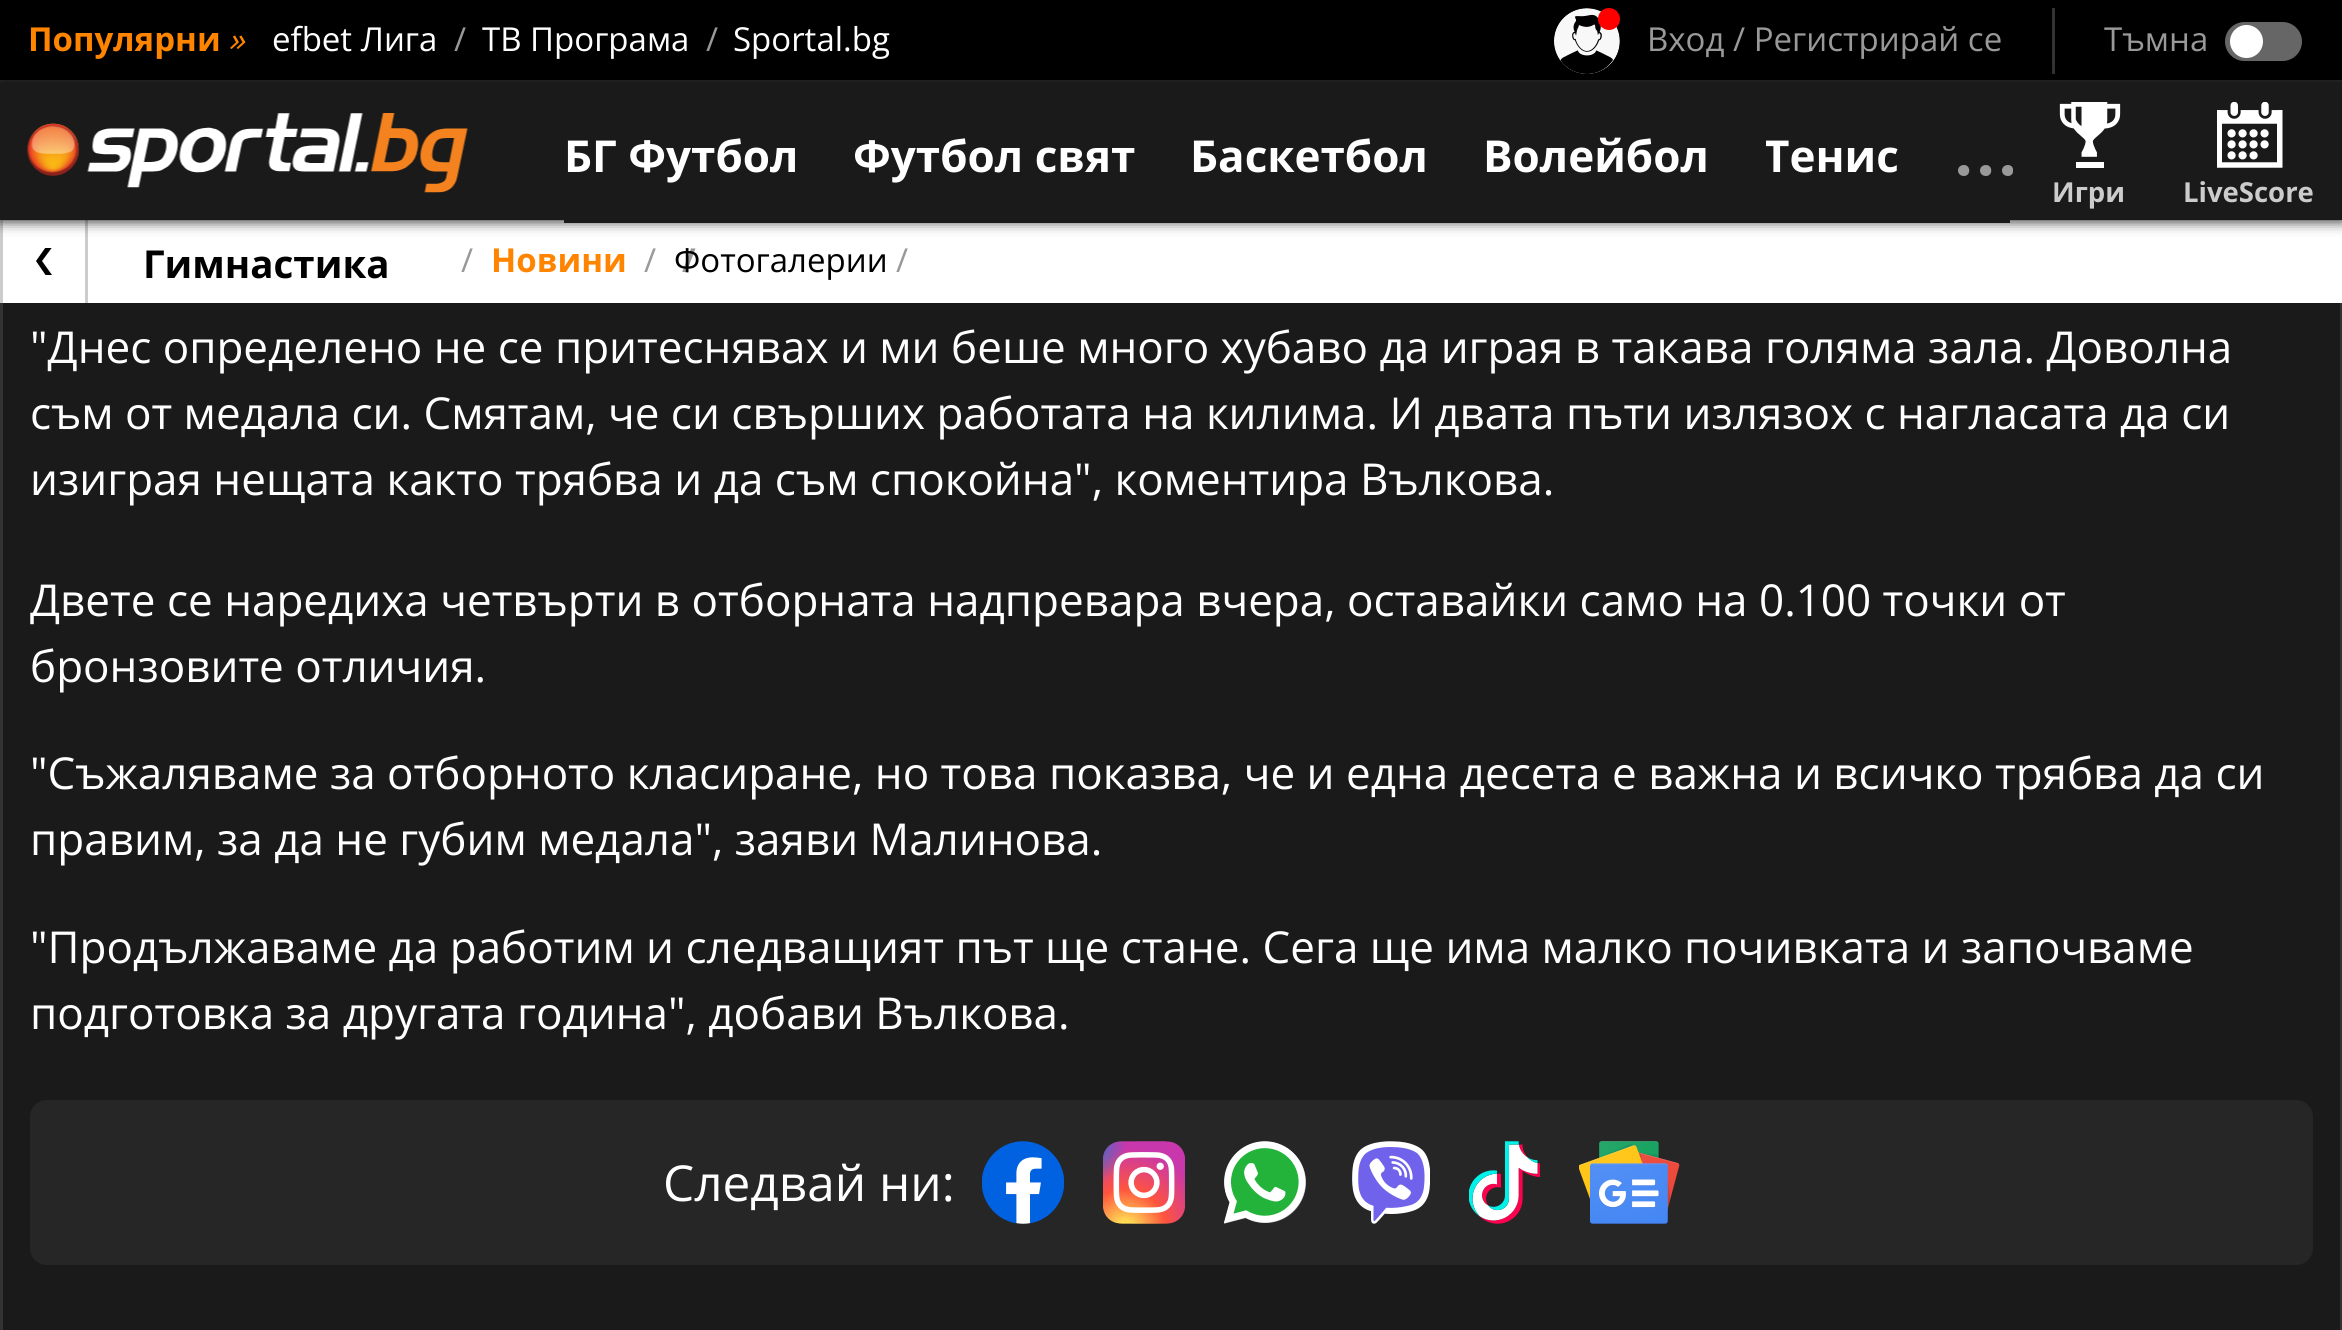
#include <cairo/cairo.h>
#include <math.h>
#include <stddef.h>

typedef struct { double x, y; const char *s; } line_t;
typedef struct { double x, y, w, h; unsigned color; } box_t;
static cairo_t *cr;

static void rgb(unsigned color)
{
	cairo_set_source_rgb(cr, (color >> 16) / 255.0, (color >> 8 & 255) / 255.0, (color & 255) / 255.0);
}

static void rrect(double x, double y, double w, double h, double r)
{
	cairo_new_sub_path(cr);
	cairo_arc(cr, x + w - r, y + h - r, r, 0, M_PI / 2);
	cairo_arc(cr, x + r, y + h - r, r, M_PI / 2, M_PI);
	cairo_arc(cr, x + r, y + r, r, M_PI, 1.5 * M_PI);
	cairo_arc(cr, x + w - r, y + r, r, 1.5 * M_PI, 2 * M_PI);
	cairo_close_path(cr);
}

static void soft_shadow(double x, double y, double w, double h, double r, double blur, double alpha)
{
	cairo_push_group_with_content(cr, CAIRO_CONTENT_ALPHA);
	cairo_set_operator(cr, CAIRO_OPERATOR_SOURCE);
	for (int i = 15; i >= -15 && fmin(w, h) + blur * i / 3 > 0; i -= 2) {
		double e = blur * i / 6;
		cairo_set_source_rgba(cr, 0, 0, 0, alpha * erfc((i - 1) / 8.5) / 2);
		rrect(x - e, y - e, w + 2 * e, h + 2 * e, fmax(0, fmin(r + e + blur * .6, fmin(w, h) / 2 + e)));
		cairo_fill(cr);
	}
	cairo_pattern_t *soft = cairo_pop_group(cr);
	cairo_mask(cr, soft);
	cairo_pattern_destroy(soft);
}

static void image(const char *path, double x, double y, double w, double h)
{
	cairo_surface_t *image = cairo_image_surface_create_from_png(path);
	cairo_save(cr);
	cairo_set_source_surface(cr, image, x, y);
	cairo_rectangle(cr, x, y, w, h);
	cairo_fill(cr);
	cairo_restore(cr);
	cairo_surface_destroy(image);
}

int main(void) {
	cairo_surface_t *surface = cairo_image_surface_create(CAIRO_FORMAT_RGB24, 2342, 1330);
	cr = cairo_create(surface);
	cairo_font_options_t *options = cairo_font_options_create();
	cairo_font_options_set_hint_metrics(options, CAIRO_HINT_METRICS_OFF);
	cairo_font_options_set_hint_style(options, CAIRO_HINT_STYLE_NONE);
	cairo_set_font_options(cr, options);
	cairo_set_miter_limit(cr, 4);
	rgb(0x1a1a1a);
	cairo_paint(cr);
	cairo_rectangle(cr, 1.5, -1.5, 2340, 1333);
	rgb(0x333333);
	cairo_set_line_width(cr, 3);
	cairo_stroke(cr);
	rgb(0x000000);
	cairo_rectangle(cr, 0, 0, 2342, 80);
	cairo_fill(cr);
	rgb(0x333333);
	cairo_rectangle(cr, 0, 80, 2342, 3);
	cairo_fill(cr);
	image("img/1.png", 1554, 8, 66, 66);
	rgb(0xff0000);
	cairo_arc(cr, 1609, 19, 11, 0, 2 * M_PI);
	cairo_fill(cr);
	rgb(0x333333);
	cairo_rectangle(cr, 2052, 8, 3, 66);
	cairo_fill(cr);
	rgb(0x666666);
	rrect(2225, 22, 77, 39, 19.5);
	cairo_fill(cr);
	rgb(0xffffff);
	cairo_arc(cr, 2246.5, 41.5, 16.5, 0, 2 * M_PI);
	cairo_fill(cr);
	{
		static const box_t items[] = {
			{3, 220, 2339, 83, 0xffffff},
			{85, 220, 3, 83, 0xcccccc},
			{0, 220, 3, 83, 0xcccccc},
		};
		for (size_t i = 0; i < sizeof items / sizeof *items; i++) {
			rgb(items[i].color);
			cairo_rectangle(cr, items[i].x, items[i].y, items[i].w, items[i].h);
			cairo_fill(cr);
		}
	}
	rgb(0x000000);
	soft_shadow(0, 83, 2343, 137, 0, 7, 0.99);
	rgb(0x1a1a1a);
	cairo_rectangle(cr, 0, 83, 2342, 137);
	cairo_fill(cr);
	image("img/2.png", 27, 113, 441, 80);
	cairo_rectangle(cr, 564, 220, 1446, 3);
	cairo_fill(cr);
	cairo_save(cr);
	cairo_rectangle(cr, 1958, 165, 55, 11);
	cairo_clip(cr);
	rgb(0x999999);
	cairo_set_fill_rule(cr, CAIRO_FILL_RULE_EVEN_ODD);
	cairo_new_path(cr);
	cairo_move_to(cr, 1964, 165);
	cairo_curve_to(cr, 1971, 165, 1971, 176, 1964, 176);
	cairo_curve_to(cr, 1956, 176, 1956, 165, 1964, 165);
	cairo_close_path(cr);
	cairo_move_to(cr, 1986, 165);
	cairo_curve_to(cr, 1993, 165, 1993, 176, 1986, 176);
	cairo_curve_to(cr, 1978, 176, 1978, 165, 1986, 165);
	cairo_close_path(cr);
	cairo_move_to(cr, 2008, 165);
	cairo_curve_to(cr, 2015, 165, 2015, 176, 2008, 176);
	cairo_curve_to(cr, 2000, 176, 2000, 165, 2008, 165);
	cairo_close_path(cr);
	cairo_fill(cr);
	cairo_restore(cr);
	image("img/3.png", 2059, 102, 62, 66);
	image("img/4.png", 2217, 102, 66, 66);
	cairo_save(cr);
	cairo_rectangle(cr, 36, 248, 16, 27);
	cairo_clip(cr);
	rgb(0x000000);
	cairo_set_fill_rule(cr, CAIRO_FILL_RULE_EVEN_ODD);
	cairo_new_path(cr);
	cairo_move_to(cr, 52, 275);
	cairo_line_to(cr, 42, 261);
	cairo_line_to(cr, 52, 247.5);
	cairo_line_to(cr, 45.5, 247.5);
	cairo_line_to(cr, 36, 261);
	cairo_line_to(cr, 45.5, 275);
	cairo_close_path(cr);
	cairo_fill(cr);
	cairo_restore(cr);
	rgb(0x262626);
	rrect(30, 1100, 2283, 165, 17);
	cairo_fill(cr);
	image("img/5.png", 982, 1141, 82, 83);
	image("img/6.png", 1103, 1141, 82, 83);
	image("img/7.png", 1224, 1141, 82, 83);
	image("img/8.png", 1352, 1141, 78, 83);
	image("img/9.png", 1469, 1141, 71, 83);
	image("img/10.png", 1579, 1141, 101, 83);
	cairo_select_font_face(cr, "Open Sans", CAIRO_FONT_SLANT_NORMAL, CAIRO_FONT_WEIGHT_BOLD);
	cairo_set_font_size(cr, 33);
	rgb(0xff8400);
	cairo_move_to(cr, 28, 51);
	cairo_show_text(cr, "Популярни");
	cairo_select_font_face(cr, "Open Sans", CAIRO_FONT_SLANT_ITALIC, CAIRO_FONT_WEIGHT_NORMAL);
	cairo_move_to(cr, 228, 51);
	cairo_show_text(cr, "»");
	cairo_select_font_face(cr, "Open Sans", CAIRO_FONT_SLANT_NORMAL, CAIRO_FONT_WEIGHT_NORMAL);
	rgb(0xffffff);
	cairo_move_to(cr, 272, 51);
	cairo_show_text(cr, "efbet Лига");
	rgb(0x999999);
	cairo_move_to(cr, 454, 51);
	cairo_show_text(cr, "/");
	rgb(0xffffff);
	cairo_move_to(cr, 482, 51);
	cairo_show_text(cr, "ТВ Програма");
	rgb(0x999999);
	cairo_move_to(cr, 706, 51);
	cairo_show_text(cr, "/");
	rgb(0xffffff);
	cairo_move_to(cr, 733, 51);
	cairo_show_text(cr, "Sportal.bg");
	rgb(0x999999);
	cairo_move_to(cr, 1647, 51);
	cairo_show_text(cr, "Вход / Регистрирай се");
	cairo_move_to(cr, 2104, 51);
	cairo_show_text(cr, "Тъмна");
	cairo_select_font_face(cr, "Open Sans", CAIRO_FONT_SLANT_NORMAL, CAIRO_FONT_WEIGHT_BOLD);
	cairo_set_font_size(cr, 44);
	rgb(0xffffff);
	{
		static const line_t items[] = {
			{564, 172, "БГ Футбол"},
			{853, 172, "Футбол свят"},
			{1190, 172, "Баскетбол"},
			{1483, 172, "Волейбол"},
		};
		for (size_t i = 0; i < sizeof items / sizeof *items; i++) {
			cairo_move_to(cr, items[i].x, items[i].y);
			cairo_show_text(cr, items[i].s);
		}
	}
	cairo_save(cr);
	cairo_rectangle(cr, 1766, 91, 134, 132);
	cairo_clip(cr);
	cairo_move_to(cr, 1764, 172);
	cairo_show_text(cr, "Тенис");
	cairo_restore(cr);
	cairo_set_font_size(cr, 27.5);
	rgb(0xcccccc);
	cairo_move_to(cr, 2052, 202);
	cairo_show_text(cr, "Игри");
	cairo_move_to(cr, 2183, 202);
	cairo_show_text(cr, "LiveScore");
	cairo_set_font_size(cr, 38.5);
	rgb(0x000000);
	cairo_move_to(cr, 143, 278);
	cairo_show_text(cr, "Гимнастика");
	cairo_select_font_face(cr, "Open Sans", CAIRO_FONT_SLANT_NORMAL, CAIRO_FONT_WEIGHT_NORMAL);
	cairo_set_font_size(cr, 33);
	rgb(0x999999);
	cairo_move_to(cr, 461, 272);
	cairo_show_text(cr, "/");
	cairo_select_font_face(cr, "Open Sans", CAIRO_FONT_SLANT_NORMAL, CAIRO_FONT_WEIGHT_BOLD);
	rgb(0xff8400);
	cairo_move_to(cr, 491, 272);
	cairo_show_text(cr, "Новини");
	rgb(0x999999);
	cairo_move_to(cr, 682, 272);
	cairo_show_text(cr, "/");
	cairo_select_font_face(cr, "Open Sans", CAIRO_FONT_SLANT_NORMAL, CAIRO_FONT_WEIGHT_NORMAL);
	cairo_move_to(cr, 644, 272);
	cairo_show_text(cr, "/");
	rgb(0x000000);
	cairo_move_to(cr, 674, 272);
	cairo_show_text(cr, "Фотогалерии");
	rgb(0x999999);
	cairo_move_to(cr, 896, 272);
	cairo_show_text(cr, "/");
	cairo_set_font_size(cr, 44);
	rgb(0xffffff);
	{
		static const line_t items[] = {
			{30, 363, "\"Днес определено не се притеснявах и ми беше много хубаво да играя в такава голяма зала. Доволна"},
			{30, 429, "съм от медала си. Смятам, че си свърших работата на килима. И двата пъти излязох с нагласата да си"},
			{30, 495, "изиграя нещата както трябва и да съм спокойна\", коментира Вълкова."},
			{30, 616, "Двете се наредиха четвърти в отборната надпревара вчера, оставайки само на 0.100 точки от"},
			{30, 682, "бронзовите отличия."},
			{30, 789, "\"Съжаляваме за отборното класиране, но това показва, че и една десета е важна и всичко трябва да си"},
			{30, 855, "правим, за да не губим медала\", заяви Малинова."},
			{30, 963, "\"Продължаваме да работим и следващият път ще стане. Сега ще има малко почивката и започваме"},
			{30, 1029, "подготовка за другата година\", добави Вълкова."},
		};
		for (size_t i = 0; i < sizeof items / sizeof *items; i++) {
			cairo_move_to(cr, items[i].x, items[i].y);
			cairo_show_text(cr, items[i].s);
		}
	}
	cairo_set_font_size(cr, 49.5);
	cairo_move_to(cr, 663, 1201);
	cairo_show_text(cr, "Следвай ни:");
	cairo_surface_write_to_png(surface, "page.png");
	cairo_font_options_destroy(options);
	cairo_destroy(cr);
	cairo_surface_destroy(surface);
	return 0;
}
